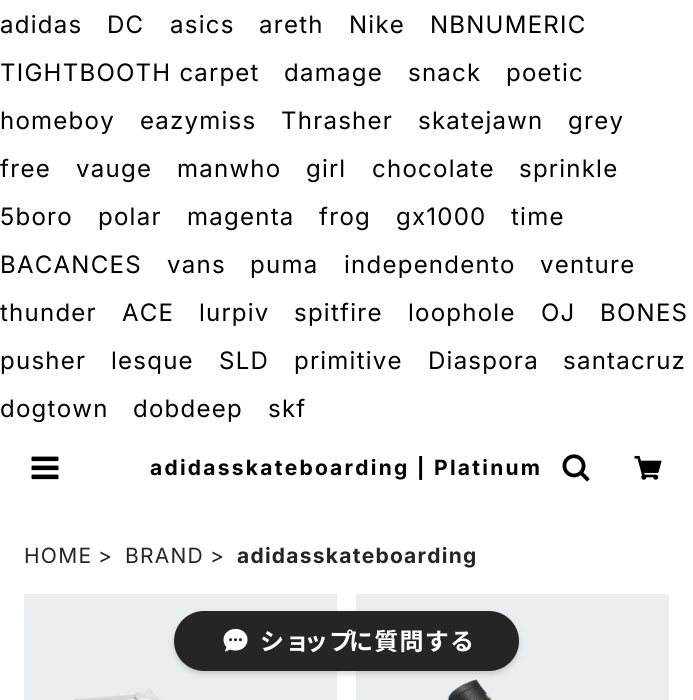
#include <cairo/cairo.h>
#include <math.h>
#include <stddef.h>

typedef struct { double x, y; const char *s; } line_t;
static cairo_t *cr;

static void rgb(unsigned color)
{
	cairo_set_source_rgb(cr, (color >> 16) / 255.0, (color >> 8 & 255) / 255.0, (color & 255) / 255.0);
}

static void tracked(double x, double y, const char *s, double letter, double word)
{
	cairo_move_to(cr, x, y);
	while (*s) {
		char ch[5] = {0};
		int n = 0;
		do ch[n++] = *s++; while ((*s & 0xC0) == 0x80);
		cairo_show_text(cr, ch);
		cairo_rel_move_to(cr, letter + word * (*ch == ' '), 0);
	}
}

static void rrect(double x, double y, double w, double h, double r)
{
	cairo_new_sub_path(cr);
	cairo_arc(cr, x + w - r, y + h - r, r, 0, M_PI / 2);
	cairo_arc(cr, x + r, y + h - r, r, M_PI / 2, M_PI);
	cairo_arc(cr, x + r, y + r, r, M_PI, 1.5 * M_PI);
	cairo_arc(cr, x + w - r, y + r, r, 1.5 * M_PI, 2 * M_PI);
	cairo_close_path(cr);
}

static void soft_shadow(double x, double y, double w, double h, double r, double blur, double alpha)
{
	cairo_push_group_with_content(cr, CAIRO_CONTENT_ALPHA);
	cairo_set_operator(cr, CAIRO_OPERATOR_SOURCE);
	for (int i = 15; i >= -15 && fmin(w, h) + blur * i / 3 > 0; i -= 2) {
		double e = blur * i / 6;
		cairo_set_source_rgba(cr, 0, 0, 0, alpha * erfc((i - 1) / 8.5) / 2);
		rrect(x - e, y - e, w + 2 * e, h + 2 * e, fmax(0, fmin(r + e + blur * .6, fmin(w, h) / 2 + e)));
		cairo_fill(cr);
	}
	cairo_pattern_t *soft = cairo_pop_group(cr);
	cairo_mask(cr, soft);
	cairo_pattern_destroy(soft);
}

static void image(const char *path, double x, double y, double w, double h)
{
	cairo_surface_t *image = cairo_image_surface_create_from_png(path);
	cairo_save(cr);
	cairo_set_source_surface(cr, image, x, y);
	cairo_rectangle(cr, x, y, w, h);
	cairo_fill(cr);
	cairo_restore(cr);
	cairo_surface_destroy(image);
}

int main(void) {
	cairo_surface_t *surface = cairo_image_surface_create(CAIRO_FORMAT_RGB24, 693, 700);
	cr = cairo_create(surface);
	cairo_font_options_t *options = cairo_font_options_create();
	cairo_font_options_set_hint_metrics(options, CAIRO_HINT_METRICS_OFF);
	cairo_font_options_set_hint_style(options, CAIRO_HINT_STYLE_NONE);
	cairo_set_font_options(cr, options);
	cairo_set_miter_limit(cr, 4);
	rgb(0xffffff);
	cairo_paint(cr);
	image("img/1.png", 31, 456, 28, 24);
	image("img/2.png", 562, 454, 28, 28);
	image("img/3.png", 634, 455, 28, 25);
	image("img/4.png", 24, 594, 314, 106);
	image("img/5.png", 355, 594, 314, 106);
	rgb(0x303030);
	soft_shadow(174, 614, 345, 60, 30, 3, 0.2);
	rgb(0x252525);
	rrect(174, 611, 345, 60, 30);
	cairo_fill(cr);
	image("img/6.png", 223, 628, 25, 24);
	cairo_select_font_face(cr, "Inter", CAIRO_FONT_SLANT_NORMAL, CAIRO_FONT_WEIGHT_NORMAL);
	cairo_set_font_size(cr, 24);
	rgb(0x000000);
	{
		static const line_t items[] = {
			{0, 33, "adidas"},
			{107, 33, "DC"},
			{170, 33, "asics"},
			{259, 33, "areth"},
			{349, 33, "Nike"},
			{430, 33, "NBNUMERIC"},
			{0, 81, "TIGHTBOOTH carpet"},
			{284, 81, "damage"},
			{408, 81, "snack"},
			{506, 81, "poetic"},
			{0, 129, "homeboy"},
			{140, 129, "eazymiss"},
			{281, 129, "Thrasher"},
			{418, 129, "skatejawn"},
			{568, 129, "grey"},
			{0, 177, "free"},
			{76, 177, "vauge"},
			{177, 177, "manwho"},
			{306, 177, "girl"},
			{372, 177, "chocolate"},
			{519, 177, "sprinkle"},
			{0, 225, "5boro"},
			{98, 225, "polar"},
			{187, 225, "magenta"},
			{319, 225, "frog"},
			{396, 225, "gx1000"},
			{511, 225, "time"},
			{0, 273, "BACANCES"},
			{167, 273, "vans"},
			{250, 273, "puma"},
			{344, 273, "independento"},
			{540, 273, "venture"},
			{0, 321, "thunder"},
			{122, 321, "ACE"},
			{199, 321, "lurpiv"},
			{294, 321, "spitfire"},
			{408, 321, "loophole"},
			{541, 321, "OJ"},
			{600, 321, "BONES"},
			{0, 369, "pusher"},
			{111, 369, "lesque"},
			{219, 369, "SLD"},
			{294, 369, "primitive"},
			{428, 369, "Diaspora"},
			{563, 369, "santacruz"},
			{0, 417, "dogtown"},
			{133, 417, "dobdeep"},
			{268, 417, "skf"},
		};
		for (size_t i = 0; i < sizeof items / sizeof *items; i++) {
			tracked(items[i].x, items[i].y, items[i].s, 1.25, 0);
		}
	}
	cairo_save(cr);
	cairo_rectangle(cr, 144, 456, 405, 24);
	cairo_clip(cr);
	cairo_select_font_face(cr, "Inter", CAIRO_FONT_SLANT_NORMAL, CAIRO_FONT_WEIGHT_BOLD);
	cairo_set_font_size(cr, 21);
	tracked(150, 475, "adidasskateboarding | Platinum", 2.25, 0);
	cairo_restore(cr);
	cairo_set_font_size(cr, 21);
	rgb(0x252525);
	{
		static const line_t items[] = {
			{24, 563, "HOME"},
			{98, 563, ">"},
			{125, 563, "BRAND"},
			{210, 563, ">"},
		};
		for (size_t i = 0; i < sizeof items / sizeof *items; i++) {
			tracked(items[i].x, items[i].y, items[i].s, 1.25, 0);
		}
	}
	cairo_select_font_face(cr, "Inter", CAIRO_FONT_SLANT_NORMAL, CAIRO_FONT_WEIGHT_BOLD);
	tracked(237, 563, "adidasskateboarding", 1.25, 0);
	cairo_select_font_face(cr, "Noto Sans JP", CAIRO_FONT_SLANT_NORMAL, CAIRO_FONT_WEIGHT_BOLD);
	cairo_set_font_size(cr, 24);
	rgb(0xffffff);
	tracked(260, 650, "ショ", 1.25, 0);
	tracked(304, 650, "ップ", 1.25, 0);
	tracked(349, 650, "に質問する", 1.25, 0);
	cairo_surface_write_to_png(surface, "page.png");
	cairo_font_options_destroy(options);
	cairo_destroy(cr);
	cairo_surface_destroy(surface);
	return 0;
}
